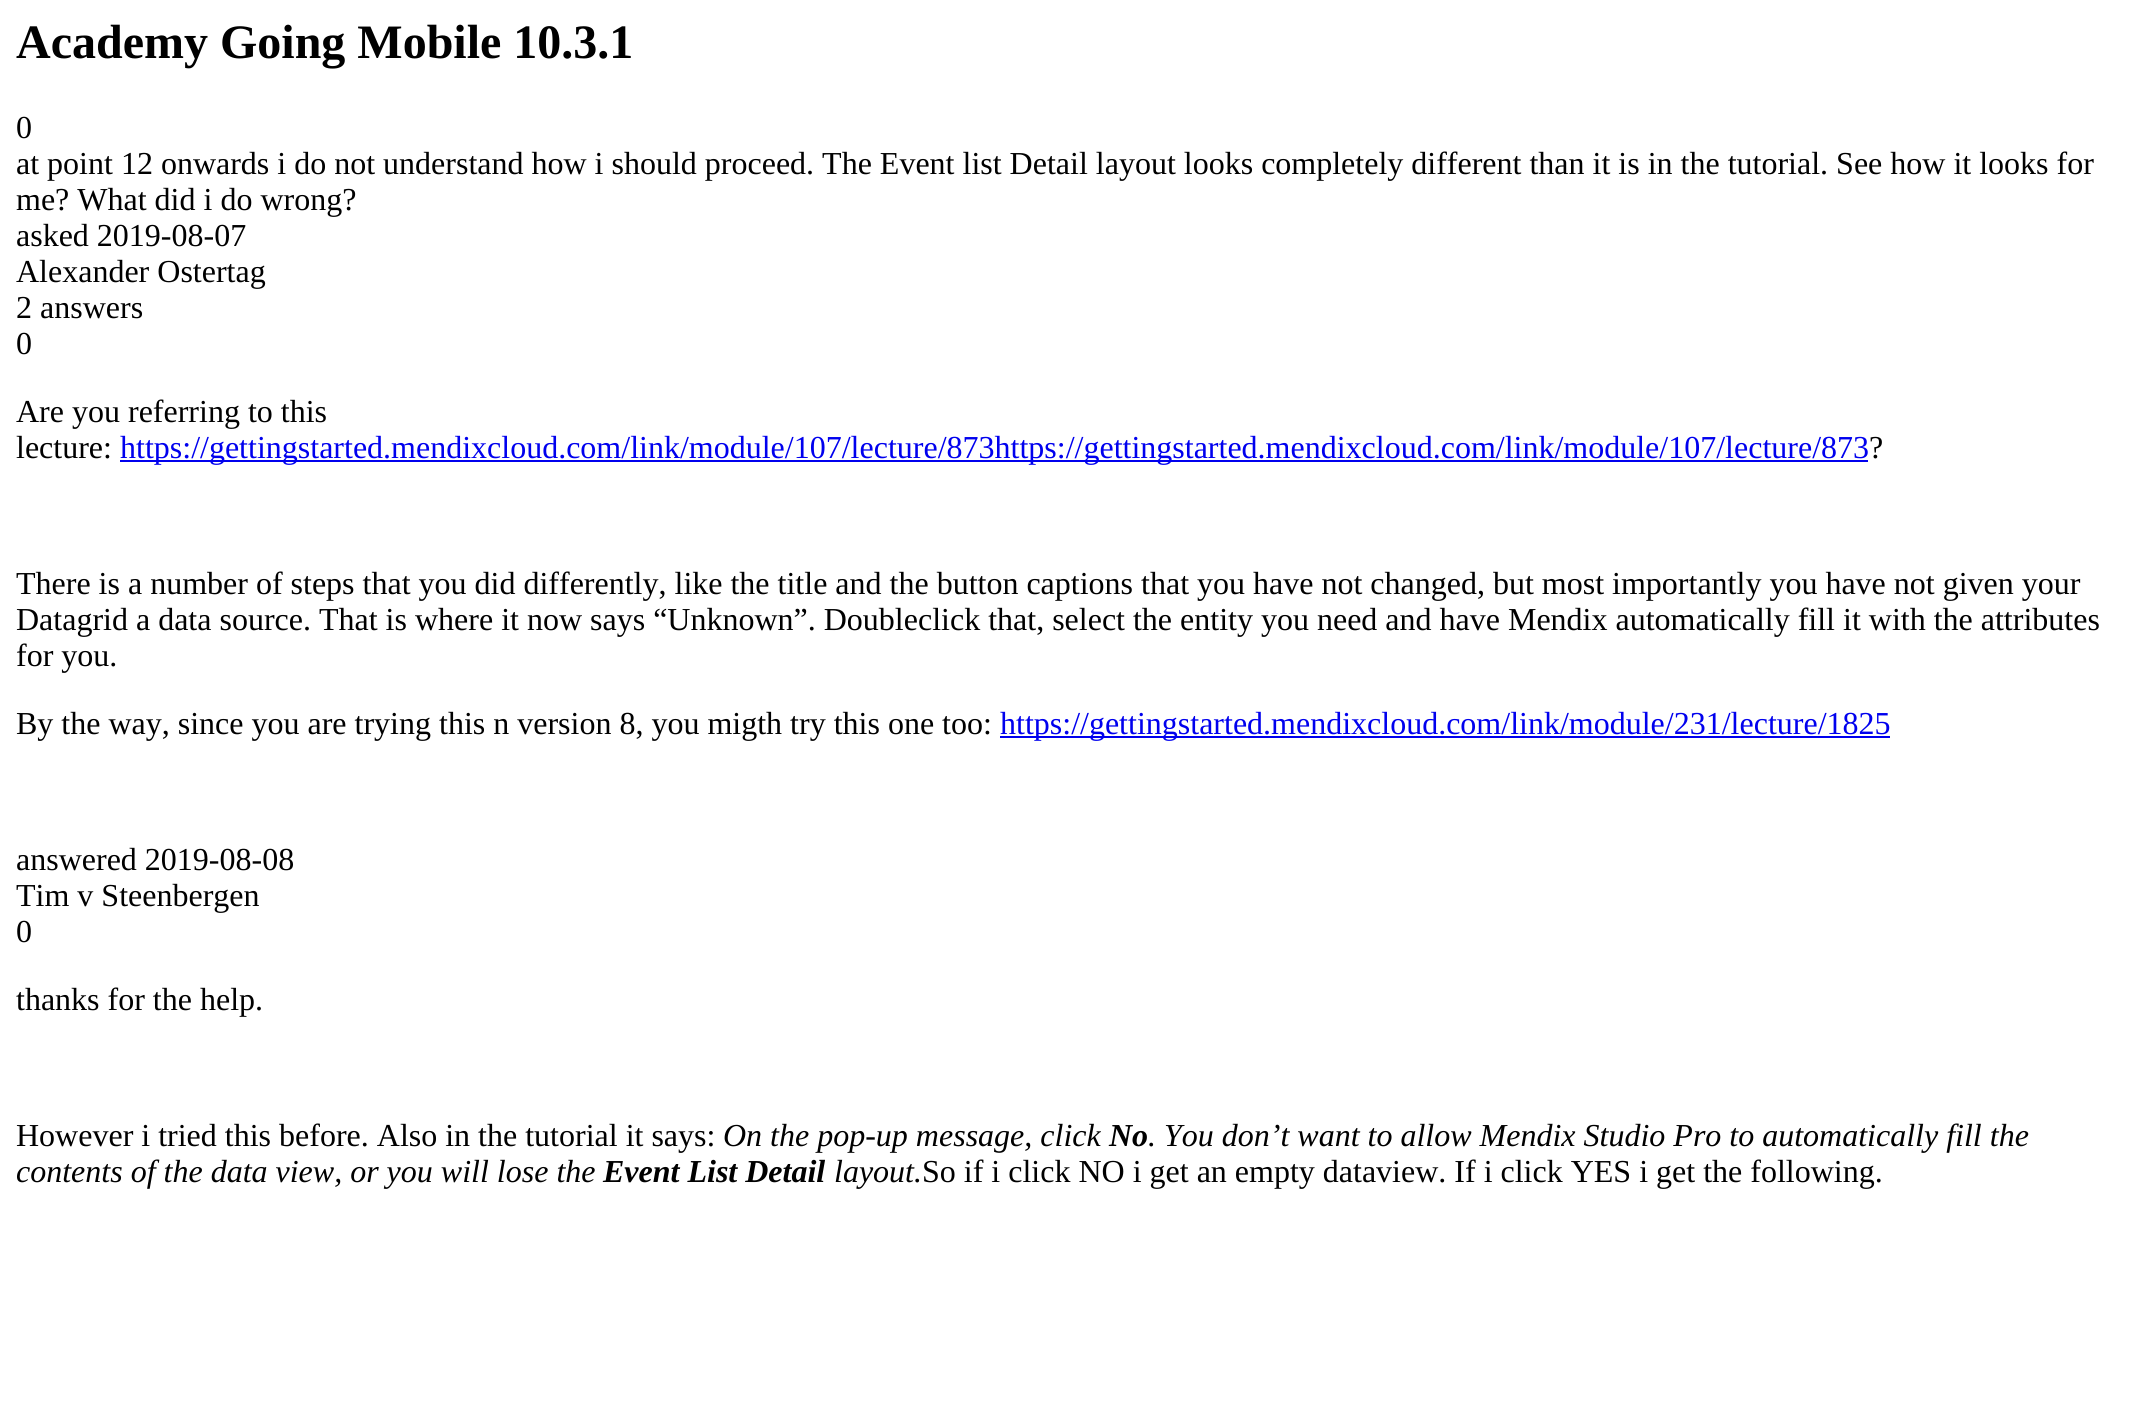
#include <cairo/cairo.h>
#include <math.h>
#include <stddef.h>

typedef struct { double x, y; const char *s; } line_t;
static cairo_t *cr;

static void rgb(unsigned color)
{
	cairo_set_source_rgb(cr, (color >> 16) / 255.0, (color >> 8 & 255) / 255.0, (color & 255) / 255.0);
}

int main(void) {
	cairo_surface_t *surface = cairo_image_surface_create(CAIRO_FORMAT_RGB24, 2135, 1426);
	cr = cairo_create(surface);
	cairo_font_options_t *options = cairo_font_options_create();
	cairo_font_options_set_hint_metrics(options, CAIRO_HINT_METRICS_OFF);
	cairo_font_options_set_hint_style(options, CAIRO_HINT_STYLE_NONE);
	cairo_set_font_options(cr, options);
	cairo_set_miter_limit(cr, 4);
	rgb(0xffffff);
	cairo_paint(cr);
	rgb(0x0000ee);
	cairo_rectangle(cr, 120, 460, 1748, 2);
	cairo_fill(cr);
	cairo_rectangle(cr, 1000, 736, 890, 2);
	cairo_fill(cr);
	cairo_select_font_face(cr, "Liberation Serif", CAIRO_FONT_SLANT_NORMAL, CAIRO_FONT_WEIGHT_BOLD);
	cairo_set_font_size(cr, 48);
	rgb(0x000000);
	cairo_move_to(cr, 16, 58);
	cairo_show_text(cr, "Academy Going Mobile 10.3.1");
	cairo_select_font_face(cr, "Liberation Serif", CAIRO_FONT_SLANT_NORMAL, CAIRO_FONT_WEIGHT_NORMAL);
	cairo_set_font_size(cr, 32);
	{
		static const line_t items[] = {
			{16, 138, "0"},
			{16, 174, "at point 12 onwards i do not understand how i should proceed. The Event list Detail layout looks completely different than it is in the tutorial. See how it looks for"},
			{16, 210, "me? What did i do wrong?"},
			{16, 246, "asked 2019-08-07"},
			{16, 282, "Alexander Ostertag"},
			{16, 318, "2 answers"},
			{16, 354, "0"},
			{16, 422, "Are you referring to this"},
			{16, 458, "lecture:"},
		};
		for (size_t i = 0; i < sizeof items / sizeof *items; i++) {
			cairo_move_to(cr, items[i].x, items[i].y);
			cairo_show_text(cr, items[i].s);
		}
	}
	rgb(0x0000ee);
	cairo_move_to(cr, 120, 458);
	cairo_show_text(cr, "https://gettingstarted.mendixcloud.com/link/module/107/lecture/873https://gettingstarted.mendixcloud.com/link/module/107/lecture/873");
	rgb(0x000000);
	{
		static const line_t items[] = {
			{1869, 458, "?"},
			{16, 594, "There is a number of steps that you did differently, like the title and the button captions that you have not changed, but most importantly you have not given your"},
			{16, 630, "Datagrid a data source. That is where it now says “Unknown”. Doubleclick that, select the entity you need and have Mendix automatically fill it with the attributes"},
			{16, 666, "for you."},
			{16, 734, "By the way, since you are trying this n version 8, you migth try this one too:"},
		};
		for (size_t i = 0; i < sizeof items / sizeof *items; i++) {
			cairo_move_to(cr, items[i].x, items[i].y);
			cairo_show_text(cr, items[i].s);
		}
	}
	rgb(0x0000ee);
	cairo_move_to(cr, 1000, 734);
	cairo_show_text(cr, "https://gettingstarted.mendixcloud.com/link/module/231/lecture/1825");
	rgb(0x000000);
	{
		static const line_t items[] = {
			{16, 870, "answered 2019-08-08"},
			{16, 906, "Tim v Steenbergen"},
			{16, 942, "0"},
			{16, 1010, "thanks for the help."},
			{16, 1146, "However i tried this before. Also in the tutorial it says:"},
		};
		for (size_t i = 0; i < sizeof items / sizeof *items; i++) {
			cairo_move_to(cr, items[i].x, items[i].y);
			cairo_show_text(cr, items[i].s);
		}
	}
	cairo_select_font_face(cr, "Liberation Serif", CAIRO_FONT_SLANT_ITALIC, CAIRO_FONT_WEIGHT_NORMAL);
	cairo_move_to(cr, 723, 1146);
	cairo_show_text(cr, "On the pop-up message, click");
	cairo_select_font_face(cr, "Liberation Serif", CAIRO_FONT_SLANT_ITALIC, CAIRO_FONT_WEIGHT_BOLD);
	cairo_move_to(cr, 1109, 1146);
	cairo_show_text(cr, "No");
	cairo_select_font_face(cr, "Liberation Serif", CAIRO_FONT_SLANT_ITALIC, CAIRO_FONT_WEIGHT_NORMAL);
	cairo_move_to(cr, 1148, 1146);
	cairo_show_text(cr, ". You don’t want to allow Mendix Studio Pro to automatically fill the");
	cairo_move_to(cr, 16, 1182);
	cairo_show_text(cr, "contents of the data view, or you will lose the");
	cairo_select_font_face(cr, "Liberation Serif", CAIRO_FONT_SLANT_ITALIC, CAIRO_FONT_WEIGHT_BOLD);
	cairo_move_to(cr, 603, 1182);
	cairo_show_text(cr, "Event List Detail");
	cairo_select_font_face(cr, "Liberation Serif", CAIRO_FONT_SLANT_ITALIC, CAIRO_FONT_WEIGHT_NORMAL);
	cairo_move_to(cr, 834, 1182);
	cairo_show_text(cr, "layout.");
	cairo_select_font_face(cr, "Liberation Serif", CAIRO_FONT_SLANT_NORMAL, CAIRO_FONT_WEIGHT_NORMAL);
	cairo_move_to(cr, 922, 1182);
	cairo_show_text(cr, "So if i click NO i get an empty dataview. If i click YES i get the following.");
	cairo_surface_write_to_png(surface, "page.png");
	cairo_font_options_destroy(options);
	cairo_destroy(cr);
	cairo_surface_destroy(surface);
	return 0;
}
